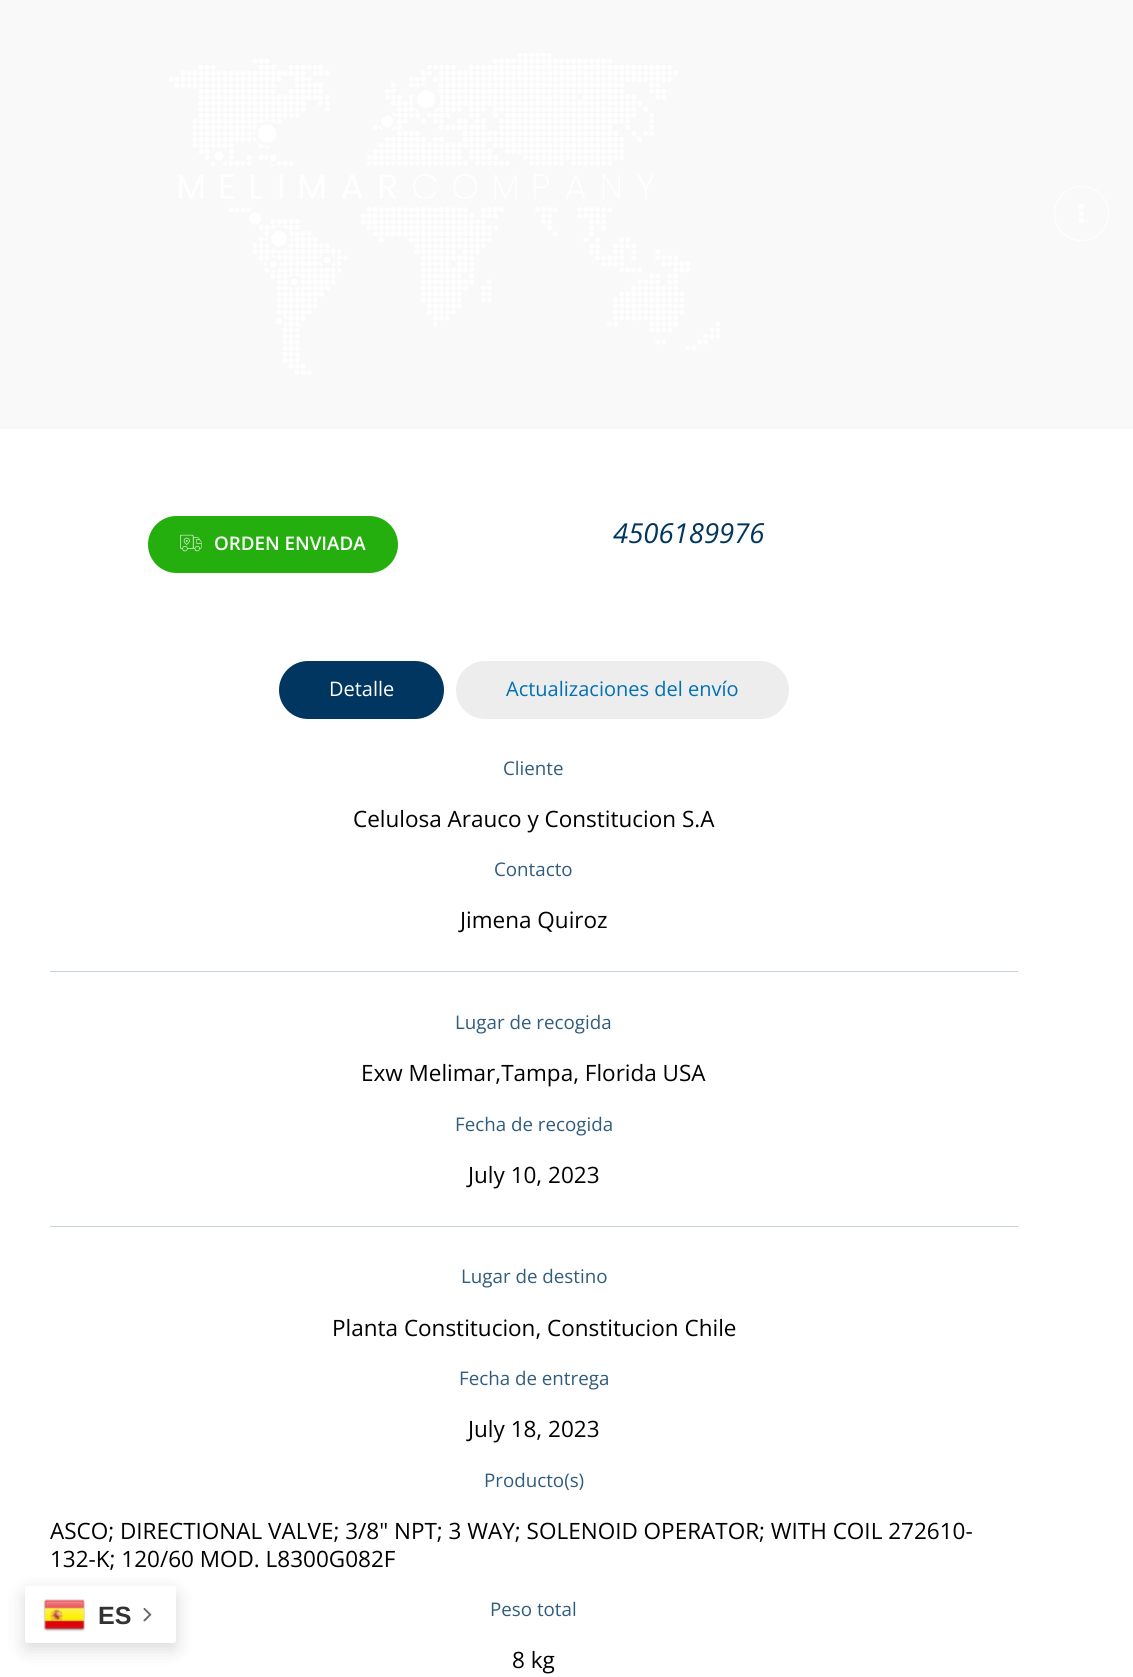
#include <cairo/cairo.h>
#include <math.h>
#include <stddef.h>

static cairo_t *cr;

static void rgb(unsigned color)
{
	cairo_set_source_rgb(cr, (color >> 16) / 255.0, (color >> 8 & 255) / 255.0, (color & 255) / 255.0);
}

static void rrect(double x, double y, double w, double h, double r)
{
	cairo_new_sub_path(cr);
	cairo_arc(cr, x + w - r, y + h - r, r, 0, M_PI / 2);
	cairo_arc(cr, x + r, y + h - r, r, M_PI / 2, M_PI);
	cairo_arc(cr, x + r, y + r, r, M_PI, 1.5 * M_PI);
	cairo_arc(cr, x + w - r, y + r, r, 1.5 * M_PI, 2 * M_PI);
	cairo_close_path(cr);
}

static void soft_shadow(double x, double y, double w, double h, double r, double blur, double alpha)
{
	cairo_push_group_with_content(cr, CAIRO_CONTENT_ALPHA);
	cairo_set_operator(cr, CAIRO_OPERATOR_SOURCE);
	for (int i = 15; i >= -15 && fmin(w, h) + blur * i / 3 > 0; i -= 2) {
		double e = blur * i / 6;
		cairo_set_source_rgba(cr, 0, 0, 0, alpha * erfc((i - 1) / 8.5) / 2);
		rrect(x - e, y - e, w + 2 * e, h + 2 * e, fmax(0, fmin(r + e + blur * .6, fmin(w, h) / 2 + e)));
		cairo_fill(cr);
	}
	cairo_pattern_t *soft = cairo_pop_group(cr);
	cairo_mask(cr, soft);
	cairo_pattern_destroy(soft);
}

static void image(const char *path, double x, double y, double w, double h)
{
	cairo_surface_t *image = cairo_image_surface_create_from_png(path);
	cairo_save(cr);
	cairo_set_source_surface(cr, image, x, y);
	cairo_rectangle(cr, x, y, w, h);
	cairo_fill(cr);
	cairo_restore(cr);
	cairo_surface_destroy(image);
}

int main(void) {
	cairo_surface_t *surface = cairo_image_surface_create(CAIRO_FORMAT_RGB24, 1133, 1677);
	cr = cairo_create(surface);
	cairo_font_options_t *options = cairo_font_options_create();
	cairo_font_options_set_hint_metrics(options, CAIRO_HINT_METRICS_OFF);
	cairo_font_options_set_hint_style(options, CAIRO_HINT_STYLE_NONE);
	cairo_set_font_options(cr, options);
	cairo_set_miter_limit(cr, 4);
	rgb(0xffffff);
	cairo_paint(cr);
	rgb(0xf9f9f9);
	cairo_rectangle(cr, 0, 0, 1133, 429);
	cairo_fill(cr);
	image("img/1.png", 169, 53, 551, 322);
	cairo_arc(cr, 1081.5, 213.5, 27, 0, 2 * M_PI);
	rgb(0xffffff);
	cairo_set_line_width(cr, 1);
	cairo_stroke(cr);
	image("img/2.png", 1079, 204, 5, 19);
	rgb(0x25af0e);
	rrect(148, 516, 250, 57, 28.5);
	cairo_fill(cr);
	image("img/3.png", 180, 534, 22, 18);
	rgb(0x00365f);
	rrect(279, 661, 165, 58, 29);
	cairo_fill(cr);
	rgb(0xededed);
	rrect(456, 661, 333, 58, 29);
	cairo_fill(cr);
	rgb(0xc7d3dc);
	cairo_rectangle(cr, 50, 971, 968, 1);
	cairo_fill(cr);
	cairo_rectangle(cr, 50, 1226, 968, 1);
	cairo_fill(cr);
	rgb(0x000000);
	soft_shadow(25, 1593, 151, 56, 2.5, 9.5, 0.15);
	rgb(0xffffff);
	rrect(25, 1586, 151, 57, 2.5);
	cairo_fill(cr);
	image("img/4.png", 43, 1599, 42, 33);
	image("img/5.png", 143, 1608, 9, 14);
	cairo_select_font_face(cr, "Open Sans SemiBold", CAIRO_FONT_SLANT_NORMAL, CAIRO_FONT_WEIGHT_NORMAL);
	cairo_set_font_size(cr, 18.75);
	cairo_move_to(cr, 214, 550);
	cairo_show_text(cr, "ORDEN ENVIADA");
	cairo_select_font_face(cr, "Open Sans", CAIRO_FONT_SLANT_ITALIC, CAIRO_FONT_WEIGHT_NORMAL);
	cairo_set_font_size(cr, 27.5);
	rgb(0x00365f);
	cairo_move_to(cr, 613, 543);
	cairo_show_text(cr, "4506189976");
	cairo_select_font_face(cr, "Open Sans", CAIRO_FONT_SLANT_NORMAL, CAIRO_FONT_WEIGHT_NORMAL);
	cairo_set_font_size(cr, 20);
	rgb(0xffffff);
	cairo_move_to(cr, 329, 696);
	cairo_show_text(cr, "Detalle");
	rgb(0x0070b3);
	cairo_move_to(cr, 506, 696);
	cairo_show_text(cr, "Actualizaciones del envío");
	cairo_set_font_size(cr, 18.75);
	rgb(0x305c7d);
	cairo_move_to(cr, 503, 775);
	cairo_show_text(cr, "Cliente");
	cairo_set_font_size(cr, 22.5);
	rgb(0x000000);
	cairo_move_to(cr, 353, 827);
	cairo_show_text(cr, "Celulosa Arauco y Constitucion S.A");
	cairo_set_font_size(cr, 18.75);
	rgb(0x305c7d);
	cairo_move_to(cr, 494, 876);
	cairo_show_text(cr, "Contacto");
	cairo_set_font_size(cr, 22.5);
	rgb(0x000000);
	cairo_move_to(cr, 460, 928);
	cairo_show_text(cr, "Jimena Quiroz");
	cairo_set_font_size(cr, 18.75);
	rgb(0x305c7d);
	cairo_move_to(cr, 455, 1029);
	cairo_show_text(cr, "Lugar de recogida");
	cairo_set_font_size(cr, 22.5);
	rgb(0x000000);
	cairo_move_to(cr, 361, 1081);
	cairo_show_text(cr, "Exw Melimar,Tampa, Florida USA");
	cairo_set_font_size(cr, 18.75);
	rgb(0x305c7d);
	cairo_move_to(cr, 455, 1131);
	cairo_show_text(cr, "Fecha de recogida");
	cairo_set_font_size(cr, 22.5);
	rgb(0x000000);
	cairo_move_to(cr, 468, 1183);
	cairo_show_text(cr, "July 10, 2023");
	cairo_set_font_size(cr, 18.75);
	rgb(0x305c7d);
	cairo_move_to(cr, 461, 1283);
	cairo_show_text(cr, "Lugar de destino");
	cairo_set_font_size(cr, 22.5);
	rgb(0x000000);
	cairo_move_to(cr, 332, 1336);
	cairo_show_text(cr, "Planta Constitucion, Constitucion Chile");
	cairo_set_font_size(cr, 18.75);
	rgb(0x305c7d);
	cairo_move_to(cr, 459, 1385);
	cairo_show_text(cr, "Fecha de entrega");
	cairo_set_font_size(cr, 22.5);
	rgb(0x000000);
	cairo_move_to(cr, 468, 1437);
	cairo_show_text(cr, "July 18, 2023");
	cairo_set_font_size(cr, 18.75);
	rgb(0x305c7d);
	cairo_move_to(cr, 484, 1487);
	cairo_show_text(cr, "Producto(s)");
	cairo_set_font_size(cr, 22.5);
	rgb(0x000000);
	cairo_move_to(cr, 50, 1539);
	cairo_show_text(cr, "ASCO; DIRECTIONAL VALVE; 3/8\" NPT; 3 WAY; SOLENOID OPERATOR; WITH COIL 272610-");
	cairo_move_to(cr, 50, 1567);
	cairo_show_text(cr, "132-K; 120/60 MOD. L8300G082F");
	cairo_set_font_size(cr, 18.75);
	rgb(0x305c7d);
	cairo_move_to(cr, 490, 1616);
	cairo_show_text(cr, "Peso total");
	cairo_set_font_size(cr, 22.5);
	rgb(0x000000);
	cairo_move_to(cr, 512, 1668);
	cairo_show_text(cr, "8 kg");
	cairo_select_font_face(cr, "Liberation Sans", CAIRO_FONT_SLANT_NORMAL, CAIRO_FONT_WEIGHT_BOLD);
	cairo_set_font_size(cr, 25);
	rgb(0x333333);
	cairo_move_to(cr, 98, 1624);
	cairo_show_text(cr, "ES");
	cairo_surface_write_to_png(surface, "page.png");
	cairo_font_options_destroy(options);
	cairo_destroy(cr);
	cairo_surface_destroy(surface);
	return 0;
}
